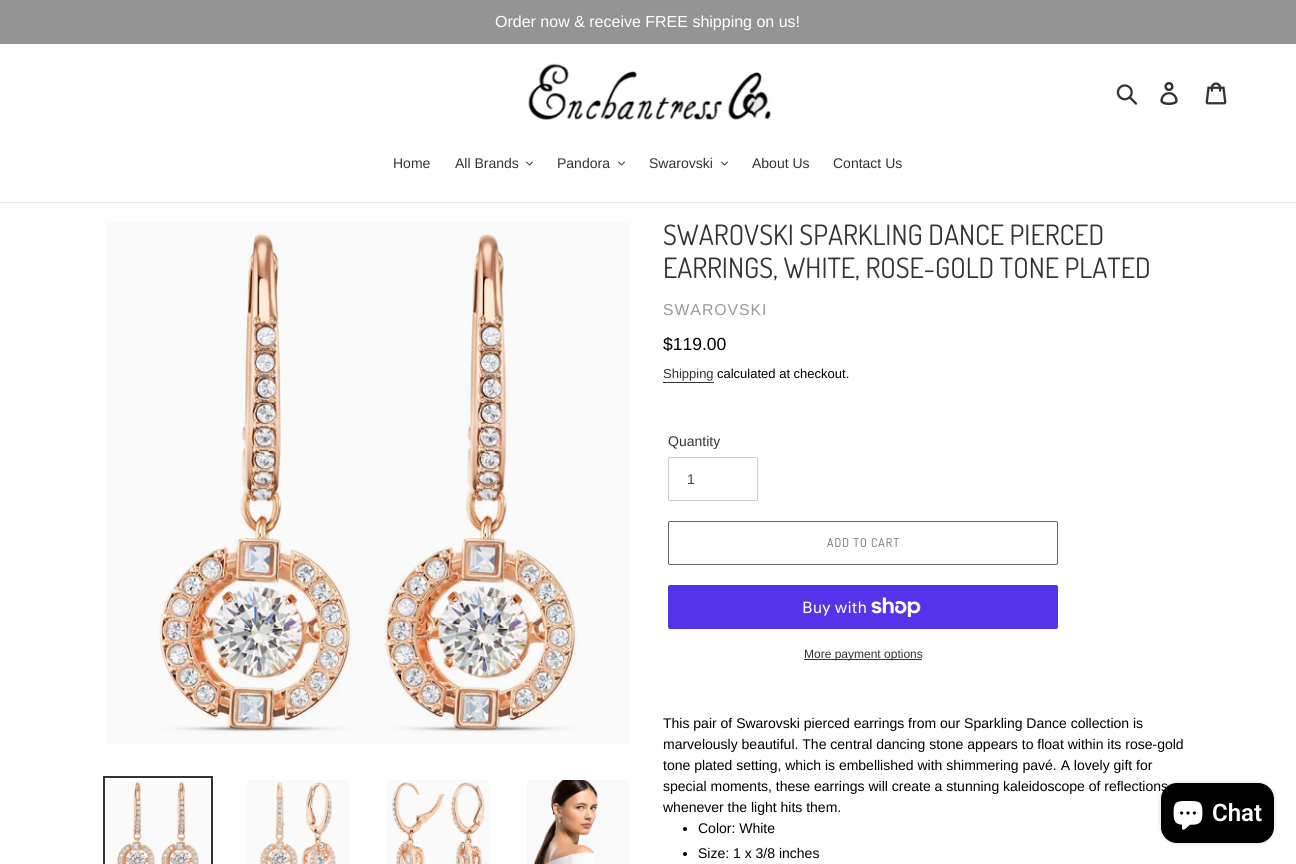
#include <cairo/cairo.h>
#include <math.h>
#include <stddef.h>

typedef struct { double x, y; const char *s; } line_t;
static cairo_t *cr;

static void rgb(unsigned color)
{
	cairo_set_source_rgb(cr, (color >> 16) / 255.0, (color >> 8 & 255) / 255.0, (color & 255) / 255.0);
}

static void tracked(double x, double y, const char *s, double letter, double word)
{
	cairo_move_to(cr, x, y);
	while (*s) {
		char ch[5] = {0};
		int n = 0;
		do ch[n++] = *s++; while ((*s & 0xC0) == 0x80);
		cairo_show_text(cr, ch);
		cairo_rel_move_to(cr, letter + word * (*ch == ' '), 0);
	}
}

static void rrect(double x, double y, double w, double h, double r)
{
	cairo_new_sub_path(cr);
	cairo_arc(cr, x + w - r, y + h - r, r, 0, M_PI / 2);
	cairo_arc(cr, x + r, y + h - r, r, M_PI / 2, M_PI);
	cairo_arc(cr, x + r, y + r, r, M_PI, 1.5 * M_PI);
	cairo_arc(cr, x + w - r, y + r, r, 1.5 * M_PI, 2 * M_PI);
	cairo_close_path(cr);
}

static void soft_shadow(double x, double y, double w, double h, double r, double blur, double alpha)
{
	cairo_push_group_with_content(cr, CAIRO_CONTENT_ALPHA);
	cairo_set_operator(cr, CAIRO_OPERATOR_SOURCE);
	for (int i = 15; i >= -15 && fmin(w, h) + blur * i / 3 > 0; i -= 2) {
		double e = blur * i / 6;
		cairo_set_source_rgba(cr, 0, 0, 0, alpha * erfc((i - 1) / 8.5) / 2);
		rrect(x - e, y - e, w + 2 * e, h + 2 * e, fmax(0, fmin(r + e + blur * .6, fmin(w, h) / 2 + e)));
		cairo_fill(cr);
	}
	cairo_pattern_t *soft = cairo_pop_group(cr);
	cairo_mask(cr, soft);
	cairo_pattern_destroy(soft);
}

static void image(const char *path, double x, double y, double w, double h)
{
	cairo_surface_t *image = cairo_image_surface_create_from_png(path);
	cairo_save(cr);
	cairo_set_source_surface(cr, image, x, y);
	cairo_rectangle(cr, x, y, w, h);
	cairo_fill(cr);
	cairo_restore(cr);
	cairo_surface_destroy(image);
}

int main(void) {
	cairo_surface_t *surface = cairo_image_surface_create(CAIRO_FORMAT_RGB24, 1296, 864);
	cr = cairo_create(surface);
	cairo_font_options_t *options = cairo_font_options_create();
	cairo_font_options_set_hint_metrics(options, CAIRO_HINT_METRICS_OFF);
	cairo_font_options_set_hint_style(options, CAIRO_HINT_STYLE_NONE);
	cairo_set_font_options(cr, options);
	cairo_set_miter_limit(cr, 4);
	rgb(0xffffff);
	cairo_paint(cr);
	rgb(0x949494);
	cairo_rectangle(cr, 0, 0, 1296, 44);
	cairo_fill(cr);
	image("img/1.png", 527, 63, 244, 58);
	image("img/2.png", 1116, 84, 22, 21);
	image("img/3.png", 1160, 82, 18, 23);
	image("img/4.png", 1205, 82, 22, 23);
	rgb(0xe8e9eb);
	cairo_rectangle(cr, 0, 202, 1296, 1);
	cairo_fill(cr);
	image("img/5.png", 526, 161, 7, 5);
	image("img/5.png", 618, 161, 7, 5);
	image("img/5.png", 721, 161, 7, 5);
	image("img/6.png", 107, 222, 522, 522);
	cairo_rectangle(cr, 104, 777, 108, 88);
	rgb(0x333333);
	cairo_stroke(cr);
	image("img/7.png", 107, 780, 102, 84);
	image("img/8.png", 247, 780, 102, 84);
	image("img/9.png", 387, 780, 102, 84);
	image("img/10.png", 527, 780, 102, 84);
	cairo_rectangle(cr, 663, 382, 51, 1);
	cairo_fill(cr);
	rrect(668.5, 457.5, 89, 43, 1.5);
	rgb(0xcccccc);
	cairo_set_line_width(cr, 1);
	cairo_stroke(cr);
	rrect(668.5, 521.5, 389, 43, 1.5);
	rgb(0x666666);
	cairo_stroke(cr);
	rgb(0x5433eb);
	rrect(668, 585, 390, 44, 2);
	cairo_fill(cr);
	image("img/11.png", 871, 597, 50, 20);
	rgb(0x333333);
	cairo_rectangle(cr, 804, 659, 118, 1);
	cairo_fill(cr);
	rgb(0x000000);
	cairo_arc(cr, 685, 829, 2, 0, 2 * M_PI);
	cairo_fill(cr);
	cairo_arc(cr, 685, 854, 2, 0, 2 * M_PI);
	cairo_fill(cr);
	rgb(0x000000);
	soft_shadow(1161, 783, 113, 60, 16, 2.5, 0.15);
	rgb(0x000000);
	rrect(1161, 783, 113, 60, 16);
	cairo_fill(cr);
	image("img/12.png", 1173, 801, 30, 29);
	cairo_select_font_face(cr, "Arimo", CAIRO_FONT_SLANT_NORMAL, CAIRO_FONT_WEIGHT_NORMAL);
	cairo_set_font_size(cr, 16);
	rgb(0xffffff);
	cairo_move_to(cr, 495, 27);
	cairo_show_text(cr, "Order now & receive FREE shipping on us!");
	cairo_set_font_size(cr, 14);
	rgb(0x333333);
	{
		static const line_t items[] = {
			{393, 168, "Home"},
			{455, 168, "All Brands"},
			{557, 168, "Pandora"},
			{649, 168, "Swarovski"},
			{752, 168, "About Us"},
			{833, 168, "Contact Us"},
		};
		for (size_t i = 0; i < sizeof items / sizeof *items; i++) {
			cairo_move_to(cr, items[i].x, items[i].y);
			cairo_show_text(cr, items[i].s);
		}
	}
	cairo_select_font_face(cr, "Dosis", CAIRO_FONT_SLANT_NORMAL, CAIRO_FONT_WEIGHT_NORMAL);
	cairo_set_font_size(cr, 28);
	cairo_move_to(cr, 663, 245);
	cairo_show_text(cr, "SWAROVSKI SPARKLING DANCE PIERCED");
	cairo_move_to(cr, 663, 278);
	cairo_show_text(cr, "EARRINGS, WHITE, ROSE-GOLD TONE PLATED");
	cairo_select_font_face(cr, "Arimo", CAIRO_FONT_SLANT_NORMAL, CAIRO_FONT_WEIGHT_NORMAL);
	cairo_set_font_size(cr, 15.75);
	rgb(0x999999);
	tracked(663, 315, "SWAROVSKI", 1, 0);
	cairo_set_font_size(cr, 17.5);
	rgb(0x000000);
	cairo_move_to(cr, 663, 350);
	cairo_show_text(cr, "$119.00");
	cairo_set_font_size(cr, 13);
	rgb(0x333333);
	cairo_move_to(cr, 663, 378);
	cairo_show_text(cr, "Shipping");
	rgb(0x000000);
	cairo_move_to(cr, 717, 378);
	cairo_show_text(cr, "calculated at checkout.");
	cairo_set_font_size(cr, 14);
	rgb(0x333333);
	cairo_move_to(cr, 668, 446);
	cairo_show_text(cr, "Quantity");
	rgb(0x444444);
	cairo_move_to(cr, 687, 484);
	cairo_show_text(cr, "1");
	cairo_select_font_face(cr, "Dosis", CAIRO_FONT_SLANT_NORMAL, CAIRO_FONT_WEIGHT_NORMAL);
	cairo_set_font_size(cr, 12);
	rgb(0x666666);
	tracked(827, 547, "ADD TO CART", 1, 0);
	cairo_select_font_face(cr, "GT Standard", CAIRO_FONT_SLANT_NORMAL, CAIRO_FONT_WEIGHT_NORMAL);
	cairo_set_font_size(cr, 16);
	rgb(0xffffff);
	cairo_move_to(cr, 802, 613);
	cairo_show_text(cr, "Buy with");
	cairo_select_font_face(cr, "Arimo", CAIRO_FONT_SLANT_NORMAL, CAIRO_FONT_WEIGHT_NORMAL);
	cairo_set_font_size(cr, 12);
	rgb(0x333333);
	cairo_move_to(cr, 804, 658);
	cairo_show_text(cr, "More payment options");
	cairo_set_font_size(cr, 14);
	rgb(0x000000);
	{
		static const line_t items[] = {
			{663, 728, "This pair of Swarovski pierced earrings from our Sparkling Dance collection is"},
			{663, 749, "marvelously beautiful. The central dancing stone appears to float within its rose-gold"},
			{663, 770, "tone plated setting, which is embellished with shimmering pavé. A lovely gift for"},
			{663, 791, "special moments, these earrings will create a stunning kaleidoscope of reflections"},
			{663, 812, "whenever the light hits them."},
			{698, 833, "Color: White"},
			{698, 858, "Size: 1 x 3/8 inches"},
		};
		for (size_t i = 0; i < sizeof items / sizeof *items; i++) {
			cairo_move_to(cr, items[i].x, items[i].y);
			cairo_show_text(cr, items[i].s);
		}
	}
	cairo_select_font_face(cr, "Roboto SemiBold", CAIRO_FONT_SLANT_NORMAL, CAIRO_FONT_WEIGHT_NORMAL);
	cairo_set_font_size(cr, 24);
	rgb(0xffffff);
	cairo_move_to(cr, 1212, 821);
	cairo_show_text(cr, "Chat");
	cairo_surface_write_to_png(surface, "page.png");
	cairo_font_options_destroy(options);
	cairo_destroy(cr);
	cairo_surface_destroy(surface);
	return 0;
}
